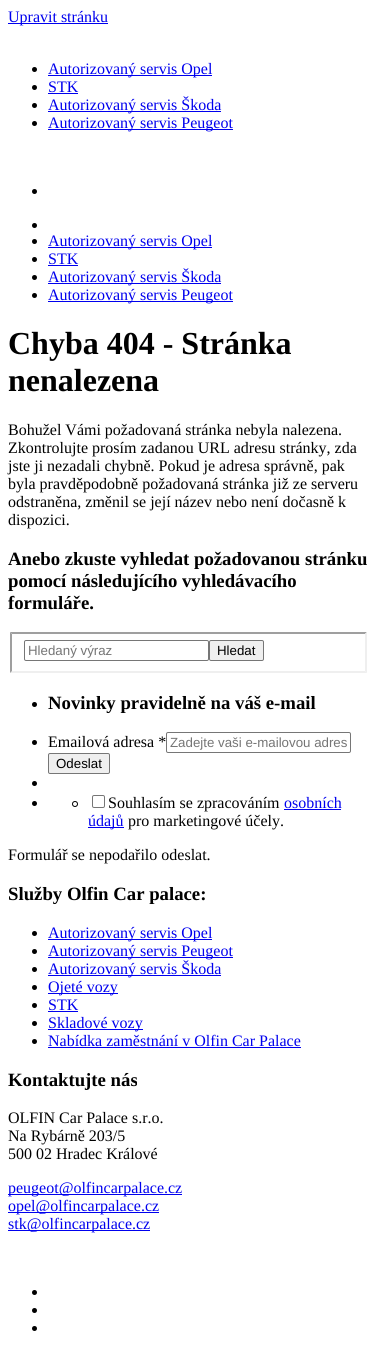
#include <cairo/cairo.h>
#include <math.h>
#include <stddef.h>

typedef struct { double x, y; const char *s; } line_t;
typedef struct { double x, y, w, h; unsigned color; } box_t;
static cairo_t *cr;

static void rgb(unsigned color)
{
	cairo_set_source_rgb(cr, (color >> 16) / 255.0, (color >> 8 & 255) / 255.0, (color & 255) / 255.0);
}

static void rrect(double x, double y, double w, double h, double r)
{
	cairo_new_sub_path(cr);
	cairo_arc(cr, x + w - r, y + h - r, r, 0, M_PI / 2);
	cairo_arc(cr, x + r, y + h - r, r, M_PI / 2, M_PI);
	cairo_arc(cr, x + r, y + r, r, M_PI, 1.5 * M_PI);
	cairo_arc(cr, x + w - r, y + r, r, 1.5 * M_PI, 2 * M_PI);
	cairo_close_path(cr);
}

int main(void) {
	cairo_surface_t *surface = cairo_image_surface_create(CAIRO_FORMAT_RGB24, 377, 1363);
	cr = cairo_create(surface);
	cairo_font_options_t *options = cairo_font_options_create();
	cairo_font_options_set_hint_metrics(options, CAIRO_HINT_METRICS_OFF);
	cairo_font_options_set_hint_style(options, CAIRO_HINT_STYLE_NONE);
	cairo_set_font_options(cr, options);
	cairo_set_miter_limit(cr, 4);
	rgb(0xffffff);
	cairo_paint(cr);
	rgb(0x0000ee);
	cairo_rectangle(cr, 8, 23, 100, 1);
	cairo_fill(cr);
	rgb(0x000000);
	cairo_arc(cr, 34.5, 69.5, 2.5, 0, 2 * M_PI);
	cairo_fill(cr);
	rgb(0x0000ee);
	cairo_rectangle(cr, 48, 75, 164, 1);
	cairo_fill(cr);
	rgb(0x000000);
	cairo_arc(cr, 34.5, 87.5, 2.5, 0, 2 * M_PI);
	cairo_fill(cr);
	rgb(0x0000ee);
	cairo_rectangle(cr, 48, 93, 30, 1);
	cairo_fill(cr);
	rgb(0x000000);
	cairo_arc(cr, 34.5, 105.5, 2.5, 0, 2 * M_PI);
	cairo_fill(cr);
	rgb(0x0000ee);
	cairo_rectangle(cr, 48, 111, 173, 1);
	cairo_fill(cr);
	rgb(0x000000);
	cairo_arc(cr, 34.5, 123.5, 2.5, 0, 2 * M_PI);
	cairo_fill(cr);
	rgb(0x0000ee);
	cairo_rectangle(cr, 48, 129, 185, 1);
	cairo_fill(cr);
	rgb(0x000000);
	cairo_arc(cr, 34.5, 191.5, 2.5, 0, 2 * M_PI);
	cairo_fill(cr);
	cairo_arc(cr, 34.5, 225.5, 2.5, 0, 2 * M_PI);
	cairo_fill(cr);
	cairo_arc(cr, 34.5, 241.5, 2.5, 0, 2 * M_PI);
	cairo_fill(cr);
	rgb(0x0000ee);
	cairo_rectangle(cr, 48, 247, 164, 1);
	cairo_fill(cr);
	rgb(0x000000);
	cairo_arc(cr, 34.5, 259.5, 2.5, 0, 2 * M_PI);
	cairo_fill(cr);
	rgb(0x0000ee);
	cairo_rectangle(cr, 48, 265, 30, 1);
	cairo_fill(cr);
	rgb(0x000000);
	cairo_arc(cr, 34.5, 277.5, 2.5, 0, 2 * M_PI);
	cairo_fill(cr);
	rgb(0x0000ee);
	cairo_rectangle(cr, 48, 283, 173, 1);
	cairo_fill(cr);
	rgb(0x000000);
	cairo_arc(cr, 34.5, 295.5, 2.5, 0, 2 * M_PI);
	cairo_fill(cr);
	rgb(0x0000ee);
	cairo_rectangle(cr, 48, 301, 185, 1);
	cairo_fill(cr);
	rgb(0x9f9f9f);
	cairo_new_path(cr);
	cairo_move_to(cr, 10, 632);
	cairo_line_to(cr, 367, 632);
	cairo_line_to(cr, 365, 634);
	cairo_line_to(cr, 12, 634);
	cairo_close_path(cr);
	cairo_fill(cr);
	rgb(0xefefef);
	cairo_new_path(cr);
	cairo_move_to(cr, 367, 632);
	cairo_line_to(cr, 367, 673);
	cairo_line_to(cr, 365, 671);
	cairo_line_to(cr, 365, 634);
	cairo_close_path(cr);
	cairo_fill(cr);
	cairo_new_path(cr);
	cairo_move_to(cr, 367, 673);
	cairo_line_to(cr, 10, 673);
	cairo_line_to(cr, 12, 671);
	cairo_line_to(cr, 365, 671);
	cairo_close_path(cr);
	cairo_fill(cr);
	rgb(0x9f9f9f);
	cairo_new_path(cr);
	cairo_move_to(cr, 10, 673);
	cairo_line_to(cr, 10, 632);
	cairo_line_to(cr, 12, 634);
	cairo_line_to(cr, 12, 671);
	cairo_close_path(cr);
	cairo_fill(cr);
	rrect(24.5, 640.5, 184, 20, 1.5);
	rgb(0x767676);
	cairo_set_line_width(cr, 1);
	cairo_stroke(cr);
	rgb(0xefefef);
	rrect(209.5, 640.5, 54, 20, 1.5);
	cairo_fill_preserve(cr);
	rgb(0x767676);
	cairo_stroke(cr);
	rgb(0x000000);
	cairo_arc(cr, 34.5, 704.5, 2.5, 0, 2 * M_PI);
	cairo_fill(cr);
	cairo_arc(cr, 34.5, 742.5, 2.5, 0, 2 * M_PI);
	cairo_fill(cr);
	rrect(166.5, 732.5, 184, 20, 1.5);
	rgb(0x767676);
	cairo_stroke(cr);
	rgb(0xefefef);
	rrect(48.5, 753.5, 61, 20, 1.5);
	cairo_fill_preserve(cr);
	rgb(0x767676);
	cairo_stroke(cr);
	rgb(0x000000);
	cairo_arc(cr, 34.5, 783.5, 2.5, 0, 2 * M_PI);
	cairo_fill(cr);
	cairo_arc(cr, 34.5, 803.5, 2.5, 0, 2 * M_PI);
	cairo_fill(cr);
	cairo_arc(cr, 75, 804, 2.5, 0, 2 * M_PI);
	cairo_stroke(cr);
	rrect(92.5, 795.5, 12, 12, 1.5);
	rgb(0x767676);
	cairo_stroke(cr);
	rgb(0x0000ee);
	cairo_rectangle(cr, 284, 809, 57, 1);
	cairo_fill(cr);
	cairo_rectangle(cr, 88, 827, 36, 1);
	cairo_fill(cr);
	rgb(0x000000);
	cairo_arc(cr, 34.5, 933.5, 2.5, 0, 2 * M_PI);
	cairo_fill(cr);
	rgb(0x0000ee);
	cairo_rectangle(cr, 48, 939, 164, 1);
	cairo_fill(cr);
	rgb(0x000000);
	cairo_arc(cr, 34.5, 951.5, 2.5, 0, 2 * M_PI);
	cairo_fill(cr);
	rgb(0x0000ee);
	cairo_rectangle(cr, 48, 957, 185, 1);
	cairo_fill(cr);
	rgb(0x000000);
	cairo_arc(cr, 34.5, 969.5, 2.5, 0, 2 * M_PI);
	cairo_fill(cr);
	rgb(0x0000ee);
	cairo_rectangle(cr, 48, 975, 173, 1);
	cairo_fill(cr);
	rgb(0x000000);
	cairo_arc(cr, 34.5, 987.5, 2.5, 0, 2 * M_PI);
	cairo_fill(cr);
	rgb(0x0000ee);
	cairo_rectangle(cr, 48, 993, 70, 1);
	cairo_fill(cr);
	rgb(0x000000);
	cairo_arc(cr, 34.5, 1005.5, 2.5, 0, 2 * M_PI);
	cairo_fill(cr);
	rgb(0x0000ee);
	cairo_rectangle(cr, 48, 1011, 30, 1);
	cairo_fill(cr);
	rgb(0x000000);
	cairo_arc(cr, 34.5, 1023.5, 2.5, 0, 2 * M_PI);
	cairo_fill(cr);
	rgb(0x0000ee);
	cairo_rectangle(cr, 48, 1029, 95, 1);
	cairo_fill(cr);
	rgb(0x000000);
	cairo_arc(cr, 34.5, 1041.5, 2.5, 0, 2 * M_PI);
	cairo_fill(cr);
	{
		static const box_t items[] = {
			{48, 1047, 253, 1, 0x0000ee},
			{8, 1194, 174, 1, 0x0000ee},
			{8, 1212, 151, 1, 0x0000ee},
			{8, 1230, 142, 1, 0x0000ee},
		};
		for (size_t i = 0; i < sizeof items / sizeof *items; i++) {
			rgb(items[i].color);
			cairo_rectangle(cr, items[i].x, items[i].y, items[i].w, items[i].h);
			cairo_fill(cr);
		}
	}
	rgb(0x000000);
	cairo_arc(cr, 34.5, 1292.5, 2.5, 0, 2 * M_PI);
	cairo_fill(cr);
	cairo_arc(cr, 34.5, 1310.5, 2.5, 0, 2 * M_PI);
	cairo_fill(cr);
	cairo_arc(cr, 34.5, 1328.5, 2.5, 0, 2 * M_PI);
	cairo_fill(cr);
	cairo_select_font_face(cr, "Liberation Serif", CAIRO_FONT_SLANT_NORMAL, CAIRO_FONT_WEIGHT_NORMAL);
	cairo_set_font_size(cr, 16);
	rgb(0x0000ee);
	{
		static const line_t items[] = {
			{8, 22, "Upravit stránku"},
			{48, 74, "Autorizovaný servis Opel"},
			{48, 92, "STK"},
			{48, 110, "Autorizovaný servis Škoda"},
			{48, 128, "Autorizovaný servis Peugeot"},
			{48, 246, "Autorizovaný servis Opel"},
			{48, 264, "STK"},
			{48, 282, "Autorizovaný servis Škoda"},
			{48, 300, "Autorizovaný servis Peugeot"},
		};
		for (size_t i = 0; i < sizeof items / sizeof *items; i++) {
			cairo_move_to(cr, items[i].x, items[i].y);
			cairo_show_text(cr, items[i].s);
		}
	}
	cairo_select_font_face(cr, "Liberation Serif", CAIRO_FONT_SLANT_NORMAL, CAIRO_FONT_WEIGHT_BOLD);
	cairo_set_font_size(cr, 32);
	rgb(0x000000);
	cairo_move_to(cr, 8, 354);
	cairo_show_text(cr, "Chyba 404 - Stránka");
	cairo_move_to(cr, 8, 391);
	cairo_show_text(cr, "nenalezena");
	cairo_select_font_face(cr, "Liberation Serif", CAIRO_FONT_SLANT_NORMAL, CAIRO_FONT_WEIGHT_NORMAL);
	cairo_set_font_size(cr, 16);
	{
		static const line_t items[] = {
			{8, 435, "Bohužel Vámi požadovaná stránka nebyla nalezena."},
			{8, 453, "Zkontrolujte prosím zadanou URL adresu stránky, zda"},
			{8, 471, "jste ji nezadali chybně. Pokud je adresa správně, pak"},
			{8, 489, "byla pravděpodobně požadovaná stránka již ze serveru"},
			{8, 507, "odstraněna, změnil se její název nebo není dočasně k"},
			{8, 525, "dispozici."},
		};
		for (size_t i = 0; i < sizeof items / sizeof *items; i++) {
			cairo_move_to(cr, items[i].x, items[i].y);
			cairo_show_text(cr, items[i].s);
		}
	}
	cairo_select_font_face(cr, "Liberation Serif", CAIRO_FONT_SLANT_NORMAL, CAIRO_FONT_WEIGHT_BOLD);
	cairo_set_font_size(cr, 18.75);
	{
		static const line_t items[] = {
			{8, 565, "Anebo zkuste vyhledat požadovanou stránku"},
			{8, 587, "pomocí následujícího vyhledávacího"},
			{8, 609, "formuláře."},
		};
		for (size_t i = 0; i < sizeof items / sizeof *items; i++) {
			cairo_move_to(cr, items[i].x, items[i].y);
			cairo_show_text(cr, items[i].s);
		}
	}
	cairo_select_font_face(cr, "Liberation Sans", CAIRO_FONT_SLANT_NORMAL, CAIRO_FONT_WEIGHT_NORMAL);
	cairo_set_font_size(cr, 13.3);
	rgb(0x757575);
	cairo_move_to(cr, 28, 655);
	cairo_show_text(cr, "Hledaný výraz");
	rgb(0x000000);
	cairo_move_to(cr, 217, 655);
	cairo_show_text(cr, "Hledat");
	cairo_select_font_face(cr, "Liberation Serif", CAIRO_FONT_SLANT_NORMAL, CAIRO_FONT_WEIGHT_BOLD);
	cairo_set_font_size(cr, 18.75);
	cairo_move_to(cr, 48, 709);
	cairo_show_text(cr, "Novinky pravidelně na váš e-mail");
	cairo_select_font_face(cr, "Liberation Serif", CAIRO_FONT_SLANT_NORMAL, CAIRO_FONT_WEIGHT_NORMAL);
	cairo_set_font_size(cr, 16);
	cairo_move_to(cr, 48, 747);
	cairo_show_text(cr, "Emailová adresa *");
	cairo_save(cr);
	cairo_rectangle(cr, 170, 735, 177, 15);
	cairo_clip(cr);
	cairo_select_font_face(cr, "Liberation Sans", CAIRO_FONT_SLANT_NORMAL, CAIRO_FONT_WEIGHT_NORMAL);
	cairo_set_font_size(cr, 13.3);
	rgb(0x757575);
	cairo_move_to(cr, 170, 747);
	cairo_show_text(cr, "Zadejte vaši e-mailovou adres");
	cairo_restore(cr);
	cairo_select_font_face(cr, "Liberation Sans", CAIRO_FONT_SLANT_NORMAL, CAIRO_FONT_WEIGHT_NORMAL);
	cairo_set_font_size(cr, 13.3);
	cairo_move_to(cr, 56, 768);
	cairo_show_text(cr, "Odeslat");
	cairo_select_font_face(cr, "Liberation Serif", CAIRO_FONT_SLANT_NORMAL, CAIRO_FONT_WEIGHT_NORMAL);
	cairo_set_font_size(cr, 16);
	cairo_move_to(cr, 108, 808);
	cairo_show_text(cr, "Souhlasím se zpracováním");
	rgb(0x0000ee);
	cairo_move_to(cr, 284, 808);
	cairo_show_text(cr, "osobních");
	cairo_move_to(cr, 88, 826);
	cairo_show_text(cr, "údajů");
	rgb(0x000000);
	cairo_move_to(cr, 128, 826);
	cairo_show_text(cr, "pro marketingové účely.");
	cairo_move_to(cr, 8, 860);
	cairo_show_text(cr, "Formulář se nepodařilo odeslat.");
	cairo_select_font_face(cr, "Liberation Serif", CAIRO_FONT_SLANT_NORMAL, CAIRO_FONT_WEIGHT_BOLD);
	cairo_set_font_size(cr, 18.75);
	cairo_move_to(cr, 8, 900);
	cairo_show_text(cr, "Služby Olfin Car palace:");
	cairo_select_font_face(cr, "Liberation Serif", CAIRO_FONT_SLANT_NORMAL, CAIRO_FONT_WEIGHT_NORMAL);
	cairo_set_font_size(cr, 16);
	rgb(0x0000ee);
	{
		static const line_t items[] = {
			{48, 938, "Autorizovaný servis Opel"},
			{48, 956, "Autorizovaný servis Peugeot"},
			{48, 974, "Autorizovaný servis Škoda"},
			{48, 992, "Ojeté vozy"},
			{48, 1010, "STK"},
			{48, 1028, "Skladové vozy"},
			{48, 1046, "Nabídka zaměstnání v Olfin Car Palace"},
		};
		for (size_t i = 0; i < sizeof items / sizeof *items; i++) {
			cairo_move_to(cr, items[i].x, items[i].y);
			cairo_show_text(cr, items[i].s);
		}
	}
	cairo_select_font_face(cr, "Liberation Serif", CAIRO_FONT_SLANT_NORMAL, CAIRO_FONT_WEIGHT_BOLD);
	cairo_set_font_size(cr, 18.75);
	rgb(0x000000);
	cairo_move_to(cr, 8, 1086);
	cairo_show_text(cr, "Kontaktujte nás");
	cairo_select_font_face(cr, "Liberation Serif", CAIRO_FONT_SLANT_NORMAL, CAIRO_FONT_WEIGHT_NORMAL);
	cairo_set_font_size(cr, 16);
	{
		static const line_t items[] = {
			{8, 1123, "OLFIN Car Palace s.r.o."},
			{8, 1141, "Na Rybárně 203/5"},
			{8, 1159, "500 02 Hradec Králové"},
		};
		for (size_t i = 0; i < sizeof items / sizeof *items; i++) {
			cairo_move_to(cr, items[i].x, items[i].y);
			cairo_show_text(cr, items[i].s);
		}
	}
	rgb(0x0000ee);
	{
		static const line_t items[] = {
			{8, 1193, "peugeot@olfincarpalace.cz"},
			{8, 1211, "opel@olfincarpalace.cz"},
			{8, 1229, "stk@olfincarpalace.cz"},
		};
		for (size_t i = 0; i < sizeof items / sizeof *items; i++) {
			cairo_move_to(cr, items[i].x, items[i].y);
			cairo_show_text(cr, items[i].s);
		}
	}
	cairo_surface_write_to_png(surface, "page.png");
	cairo_font_options_destroy(options);
	cairo_destroy(cr);
	cairo_surface_destroy(surface);
	return 0;
}
